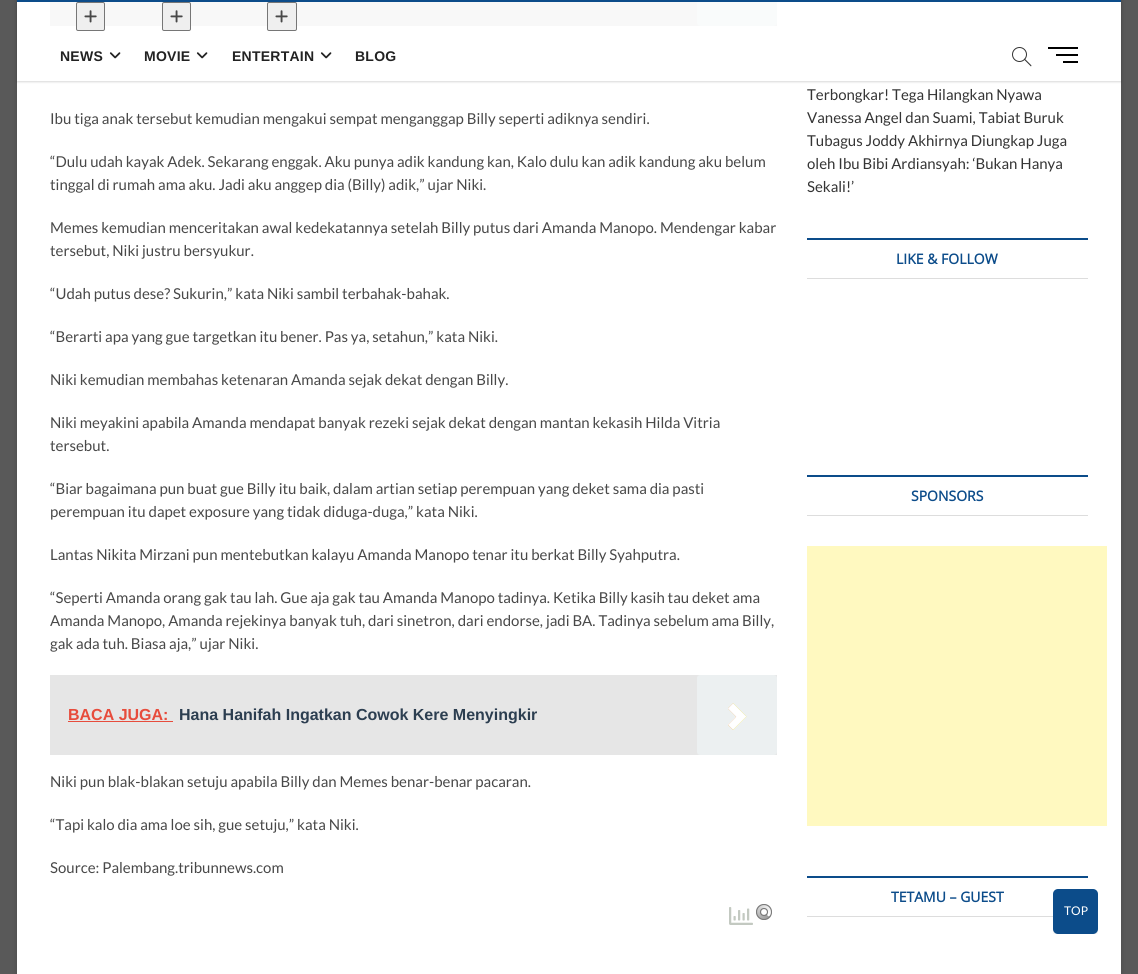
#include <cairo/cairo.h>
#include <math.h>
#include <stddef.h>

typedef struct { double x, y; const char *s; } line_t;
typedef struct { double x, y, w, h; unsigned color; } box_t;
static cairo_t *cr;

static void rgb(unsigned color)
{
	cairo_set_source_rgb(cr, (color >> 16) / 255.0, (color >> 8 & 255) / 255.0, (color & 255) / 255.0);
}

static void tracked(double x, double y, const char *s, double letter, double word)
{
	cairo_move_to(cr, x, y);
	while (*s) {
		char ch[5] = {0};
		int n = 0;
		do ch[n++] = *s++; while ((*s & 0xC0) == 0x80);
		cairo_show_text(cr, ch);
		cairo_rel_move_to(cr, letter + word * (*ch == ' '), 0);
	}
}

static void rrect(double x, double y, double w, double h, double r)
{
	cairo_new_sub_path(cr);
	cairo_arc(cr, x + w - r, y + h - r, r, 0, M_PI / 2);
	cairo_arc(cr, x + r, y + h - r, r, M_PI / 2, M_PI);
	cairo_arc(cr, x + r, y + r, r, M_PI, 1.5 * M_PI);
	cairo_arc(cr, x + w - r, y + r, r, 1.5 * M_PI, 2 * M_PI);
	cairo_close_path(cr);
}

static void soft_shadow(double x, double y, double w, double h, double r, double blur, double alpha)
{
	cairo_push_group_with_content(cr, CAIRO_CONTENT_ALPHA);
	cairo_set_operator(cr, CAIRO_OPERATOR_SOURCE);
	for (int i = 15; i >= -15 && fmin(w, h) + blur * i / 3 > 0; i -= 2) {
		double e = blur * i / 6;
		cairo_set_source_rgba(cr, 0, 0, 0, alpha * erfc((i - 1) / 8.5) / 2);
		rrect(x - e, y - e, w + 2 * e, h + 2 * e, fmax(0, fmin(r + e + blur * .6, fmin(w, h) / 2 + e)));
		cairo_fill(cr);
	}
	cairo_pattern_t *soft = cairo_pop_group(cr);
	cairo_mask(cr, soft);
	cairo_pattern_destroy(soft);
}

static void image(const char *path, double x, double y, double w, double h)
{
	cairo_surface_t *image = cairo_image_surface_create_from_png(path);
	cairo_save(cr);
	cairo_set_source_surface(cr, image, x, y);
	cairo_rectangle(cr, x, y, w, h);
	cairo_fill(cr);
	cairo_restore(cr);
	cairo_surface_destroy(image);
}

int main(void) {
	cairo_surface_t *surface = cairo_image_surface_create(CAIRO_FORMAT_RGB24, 1138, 974);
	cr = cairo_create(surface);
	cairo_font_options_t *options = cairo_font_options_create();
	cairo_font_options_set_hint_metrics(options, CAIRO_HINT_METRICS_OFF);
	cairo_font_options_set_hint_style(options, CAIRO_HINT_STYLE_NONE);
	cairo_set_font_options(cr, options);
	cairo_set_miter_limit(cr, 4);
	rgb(0x595959);
	cairo_paint(cr);
	rgb(0x000000);
	soft_shadow(17, -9, 1104, 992, 0, 3, 0.15);
	rgb(0xffffff);
	cairo_rectangle(cr, 17, 2, 1104, 972);
	cairo_fill(cr);
	rgb(0xe6e6e6);
	cairo_rectangle(cr, 50, 2, 727, 24);
	cairo_fill(cr);
	rgb(0xecf0f1);
	rrect(697, -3, 80, 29, 3);
	cairo_fill(cr);
	cairo_save(cr);
	cairo_set_fill_rule(cr, CAIRO_FILL_RULE_EVEN_ODD);
	cairo_new_path(cr);
	cairo_move_to(cr, 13, 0);
	cairo_line_to(cr, 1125, 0);
	cairo_line_to(cr, 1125, 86);
	cairo_line_to(cr, 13, 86);
	cairo_close_path(cr);
	cairo_move_to(cr, 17, 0);
	cairo_line_to(cr, 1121, 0);
	cairo_line_to(cr, 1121, 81);
	cairo_line_to(cr, 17, 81);
	cairo_close_path(cr);
	cairo_clip(cr);
	rgb(0x000000);
	soft_shadow(17, 1, 1104, 81, 0, 1, 0.15);
	cairo_restore(cr);
	cairo_set_source_rgba(cr, 1, 1, 1, 0.7);
	cairo_rectangle(cr, 50, 2, 727, 24);
	cairo_fill(cr);
	rgb(0x0c4c8a);
	cairo_rectangle(cr, 17, 0, 1104, 2);
	cairo_fill(cr);
	rgb(0xefefef);
	rrect(76.5, 2.5, 28, 28, 1.5);
	cairo_fill_preserve(cr);
	rgb(0x767676);
	cairo_set_line_width(cr, 1);
	cairo_stroke(cr);
	image("img/1.png", 84, 10, 13, 13);
	image("img/2.png", 109, 52, 12, 7);
	rgb(0xefefef);
	rrect(162.5, 2.5, 28, 28, 1.5);
	cairo_fill_preserve(cr);
	rgb(0x767676);
	cairo_stroke(cr);
	image("img/1.png", 170, 10, 13, 13);
	image("img/3.png", 196, 52, 12, 7);
	rgb(0xefefef);
	rrect(267.5, 2.5, 29, 28, 1.5);
	cairo_fill_preserve(cr);
	rgb(0x767676);
	cairo_stroke(cr);
	image("img/1.png", 275, 10, 13, 13);
	image("img/4.png", 320, 52, 12, 7);
	cairo_arc(cr, 1019.5, 54.5, 7, 0, 2 * M_PI);
	rgb(0x333333);
	cairo_stroke(cr);
	cairo_new_path(cr);
	cairo_move_to(cr, 1024, 59.5);
	cairo_line_to(cr, 1024.5, 58.5);
	cairo_line_to(cr, 1031.5, 65.5);
	cairo_line_to(cr, 1031, 66.5);
	cairo_close_path(cr);
	cairo_fill(cr);
	{
		static const box_t items[] = {
			{1056, 54, 22, 2, 0x000000},
			{1048, 47, 30, 2, 0x000000},
			{1063, 61, 15, 2, 0x000000},
			{50, 675, 727, 80, 0xe6e6e6},
			{68, 721, 105, 1, 0xe74c3c},
		};
		for (size_t i = 0; i < sizeof items / sizeof *items; i++) {
			rgb(items[i].color);
			cairo_rectangle(cr, items[i].x, items[i].y, items[i].w, items[i].h);
			cairo_fill(cr);
		}
	}
	rgb(0xecf0f1);
	rrect(697, 675, 80, 80, 3);
	cairo_fill(cr);
	image("img/5.png", 728, 703, 19, 27);
	image("img/6.png", 729, 907, 24, 18);
	image("img/7.png", 756, 904, 16, 16);
	{
		static const box_t items[] = {
			{807, 238, 281, 2, 0x0c4c8a},
			{807, 278, 281, 1, 0xdddddd},
			{807, 475, 281, 2, 0x0c4c8a},
			{807, 515, 281, 1, 0xdddddd},
			{807, 546, 300, 280, 0xfff9c0},
			{807, 876, 281, 2, 0x0c4c8a},
			{807, 916, 246, 1, 0xdddddd},
		};
		for (size_t i = 0; i < sizeof items / sizeof *items; i++) {
			rgb(items[i].color);
			cairo_rectangle(cr, items[i].x, items[i].y, items[i].w, items[i].h);
			cairo_fill(cr);
		}
	}
	cairo_save(cr);
	cairo_rectangle(cr, 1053, 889, 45, 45);
	cairo_clip(cr);
	rgb(0x000000);
	soft_shadow(1053, 891, 45, 45, 5, 1.5, 0.08);
	cairo_restore(cr);
	rgb(0x0c4c8a);
	rrect(1053, 889, 45, 45, 5);
	cairo_fill(cr);
	cairo_select_font_face(cr, "Liberation Sans", CAIRO_FONT_SLANT_NORMAL, CAIRO_FONT_WEIGHT_BOLD);
	cairo_set_font_size(cr, 14);
	rgb(0x222222);
	{
		static const line_t items[] = {
			{60, 61, "NEWS"},
			{144, 61, "MOVIE"},
			{232, 61, "ENTERTAIN"},
			{355, 61, "BLOG"},
		};
		for (size_t i = 0; i < sizeof items / sizeof *items; i++) {
			tracked(items[i].x, items[i].y, items[i].s, 0.25, 0);
		}
	}
	cairo_select_font_face(cr, "Lato", CAIRO_FONT_SLANT_NORMAL, CAIRO_FONT_WEIGHT_NORMAL);
	cairo_set_font_size(cr, 15);
	rgb(0x484848);
	{
		static const line_t items[] = {
			{50, 124, "Ibu tiga anak tersebut kemudian mengakui sempat menganggap Billy seperti adiknya sendiri."},
			{50, 167, "“Dulu udah kayak Adek. Sekarang enggak. Aku punya adik kandung kan, Kalo dulu kan adik kandung aku belum"},
			{50, 190, "tinggal di rumah ama aku. Jadi aku anggep dia (Billy) adik,” ujar Niki."},
			{50, 233, "Memes kemudian menceritakan awal kedekatannya setelah Billy putus dari Amanda Manopo. Mendengar kabar"},
			{50, 256, "tersebut, Niki justru bersyukur."},
			{50, 299, "“Udah putus dese? Sukurin,” kata Niki sambil terbahak-bahak."},
			{50, 342, "“Berarti apa yang gue targetkan itu bener. Pas ya, setahun,” kata Niki."},
			{50, 385, "Niki kemudian membahas ketenaran Amanda sejak dekat dengan Billy."},
			{50, 428, "Niki meyakini apabila Amanda mendapat banyak rezeki sejak dekat dengan mantan kekasih Hilda Vitria"},
			{50, 451, "tersebut."},
			{50, 494, "“Biar bagaimana pun buat gue Billy itu baik, dalam artian setiap perempuan yang deket sama dia pasti"},
			{50, 517, "perempuan itu dapet exposure yang tidak diduga-duga,” kata Niki."},
			{50, 560, "Lantas Nikita Mirzani pun mentebutkan kalayu Amanda Manopo tenar itu berkat Billy Syahputra."},
			{50, 603, "“Seperti Amanda orang gak tau lah. Gue aja gak tau Amanda Manopo tadinya. Ketika Billy kasih tau deket ama"},
			{50, 626, "Amanda Manopo, Amanda rejekinya banyak tuh, dari sinetron, dari endorse, jadi BA. Tadinya sebelum ama Billy,"},
			{50, 649, "gak ada tuh. Biasa aja,” ujar Niki."},
		};
		for (size_t i = 0; i < sizeof items / sizeof *items; i++) {
			cairo_move_to(cr, items[i].x, items[i].y);
			cairo_show_text(cr, items[i].s);
		}
	}
	cairo_select_font_face(cr, "Liberation Sans", CAIRO_FONT_SLANT_NORMAL, CAIRO_FONT_WEIGHT_BOLD);
	cairo_set_font_size(cr, 16);
	rgb(0xe74c3c);
	cairo_move_to(cr, 68, 720);
	cairo_show_text(cr, "BACA JUGA:");
	rgb(0x2c3e50);
	cairo_move_to(cr, 179, 720);
	cairo_show_text(cr, "Hana Hanifah Ingatkan Cowok Kere Menyingkir");
	cairo_select_font_face(cr, "Lato", CAIRO_FONT_SLANT_NORMAL, CAIRO_FONT_WEIGHT_NORMAL);
	cairo_set_font_size(cr, 15);
	rgb(0x484848);
	{
		static const line_t items[] = {
			{50, 787, "Niki pun blak-blakan setuju apabila Billy dan Memes benar-benar pacaran."},
			{50, 830, "“Tapi kalo dia ama loe sih, gue setuju,” kata Niki."},
			{50, 873, "Source: Palembang.tribunnews.com"},
		};
		for (size_t i = 0; i < sizeof items / sizeof *items; i++) {
			cairo_move_to(cr, items[i].x, items[i].y);
			cairo_show_text(cr, items[i].s);
		}
	}
	rgb(0x343434);
	{
		static const line_t items[] = {
			{807, 100, "Terbongkar! Tega Hilangkan Nyawa"},
			{807, 123, "Vanessa Angel dan Suami, Tabiat Buruk"},
			{807, 146, "Tubagus Joddy Akhirnya Diungkap Juga"},
			{807, 169, "oleh Ibu Bibi Ardiansyah: ‘Bukan Hanya"},
			{807, 192, "Sekali!’"},
		};
		for (size_t i = 0; i < sizeof items / sizeof *items; i++) {
			cairo_move_to(cr, items[i].x, items[i].y);
			cairo_show_text(cr, items[i].s);
		}
	}
	cairo_select_font_face(cr, "Open Sans", CAIRO_FONT_SLANT_NORMAL, CAIRO_FONT_WEIGHT_BOLD);
	cairo_set_font_size(cr, 14);
	rgb(0x0c4c8a);
	{
		static const line_t items[] = {
			{896, 264, "LIKE & FOLLOW"},
			{911, 501, "SPONSORS"},
			{891, 902, "TETAMU – GUEST"},
		};
		for (size_t i = 0; i < sizeof items / sizeof *items; i++) {
			cairo_move_to(cr, items[i].x, items[i].y);
			cairo_show_text(cr, items[i].s);
		}
	}
	cairo_select_font_face(cr, "Lato", CAIRO_FONT_SLANT_NORMAL, CAIRO_FONT_WEIGHT_NORMAL);
	cairo_set_font_size(cr, 12);
	rgb(0xffffff);
	cairo_move_to(cr, 1064, 915);
	cairo_show_text(cr, "TOP");
	cairo_surface_write_to_png(surface, "page.png");
	cairo_font_options_destroy(options);
	cairo_destroy(cr);
	cairo_surface_destroy(surface);
	return 0;
}
